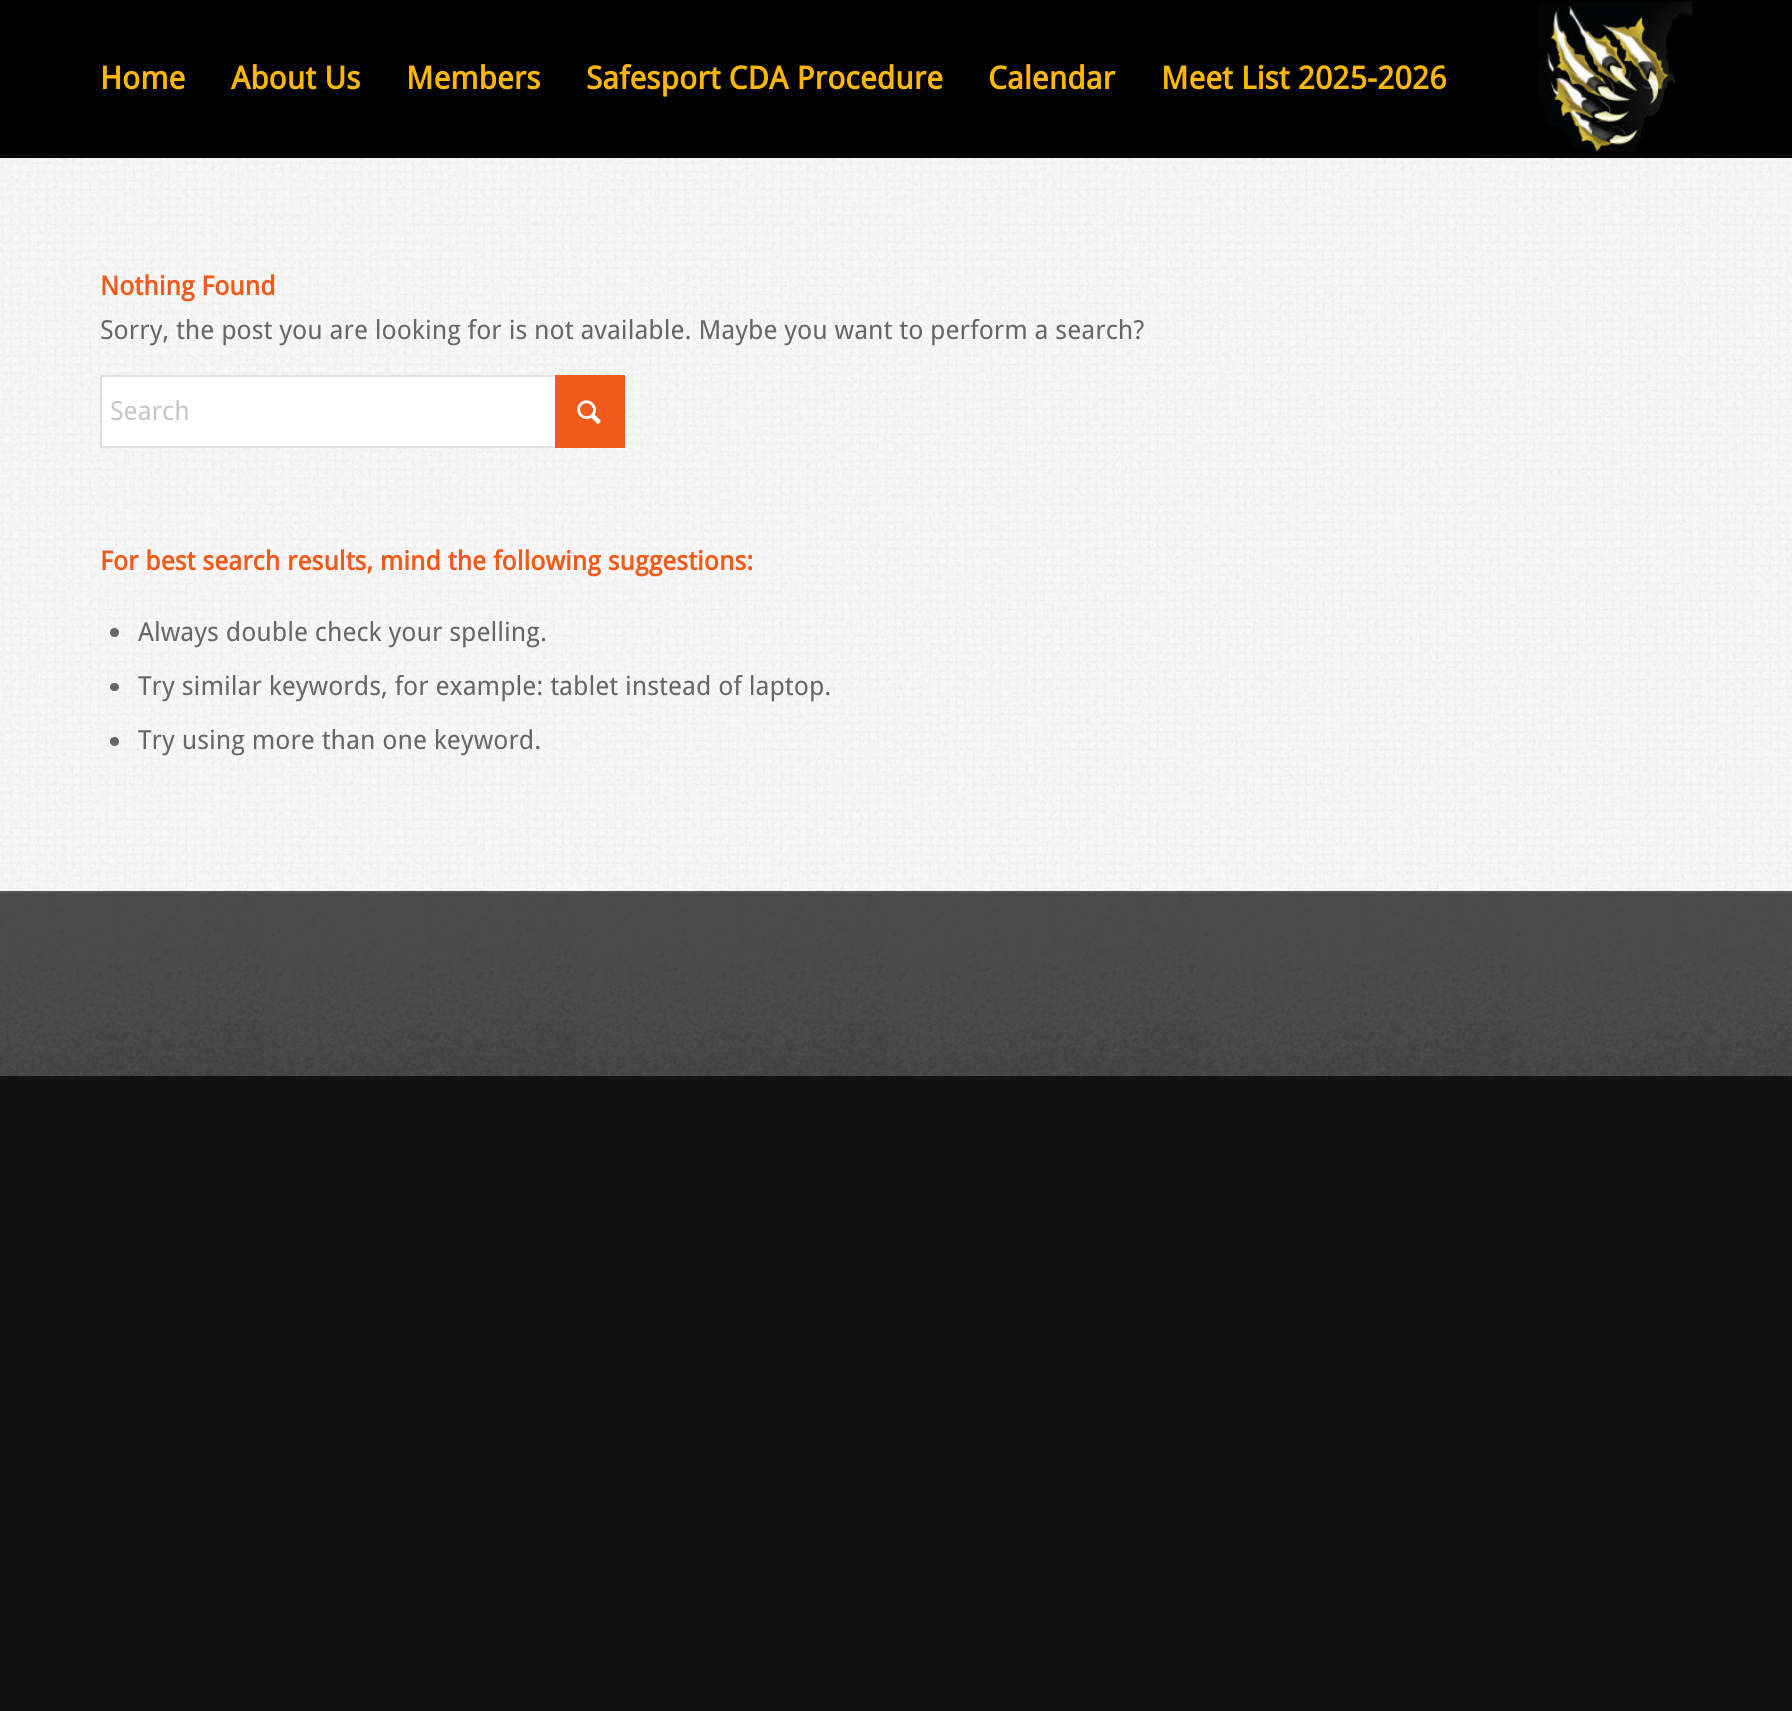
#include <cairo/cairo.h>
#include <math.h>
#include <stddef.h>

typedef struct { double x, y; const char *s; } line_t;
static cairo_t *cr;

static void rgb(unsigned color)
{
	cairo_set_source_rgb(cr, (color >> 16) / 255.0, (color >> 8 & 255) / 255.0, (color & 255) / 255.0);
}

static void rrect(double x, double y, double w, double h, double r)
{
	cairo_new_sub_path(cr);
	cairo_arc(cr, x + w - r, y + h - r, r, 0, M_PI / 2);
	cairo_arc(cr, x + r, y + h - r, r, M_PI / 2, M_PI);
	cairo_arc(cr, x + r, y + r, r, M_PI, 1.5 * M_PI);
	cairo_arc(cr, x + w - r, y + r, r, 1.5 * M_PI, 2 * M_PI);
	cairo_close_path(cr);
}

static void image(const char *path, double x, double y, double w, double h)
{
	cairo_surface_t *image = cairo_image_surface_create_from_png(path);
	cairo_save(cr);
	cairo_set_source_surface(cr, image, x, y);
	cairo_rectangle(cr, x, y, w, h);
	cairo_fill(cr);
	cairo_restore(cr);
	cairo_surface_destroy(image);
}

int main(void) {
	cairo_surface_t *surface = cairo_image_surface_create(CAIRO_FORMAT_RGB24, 1792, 1711);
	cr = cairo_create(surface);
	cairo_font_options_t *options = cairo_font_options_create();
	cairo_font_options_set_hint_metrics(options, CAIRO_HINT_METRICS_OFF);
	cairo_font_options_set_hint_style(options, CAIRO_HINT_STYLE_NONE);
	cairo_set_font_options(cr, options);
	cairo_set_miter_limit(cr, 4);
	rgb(0x111111);
	cairo_paint(cr);
	rgb(0x000000);
	cairo_rectangle(cr, 0, 156, 1792, 2);
	cairo_fill(cr);
	rgb(0xe1e1e1);
	cairo_rectangle(cr, 0, 154, 1792, 2);
	cairo_fill(cr);
	cairo_set_source_rgba(cr, 0, 0, 0, 0.95);
	cairo_rectangle(cr, 0, 154, 1792, 2);
	cairo_fill(cr);
	rgb(0x000000);
	cairo_rectangle(cr, 77, 154, 1393, 2);
	cairo_fill(cr);
	cairo_rectangle(cr, 0, 0, 1792, 154);
	cairo_fill(cr);
	image("img/1.png", 1538, 1, 155, 155);
	rgb(0xf8f8f8);
	cairo_rectangle(cr, 0, 158, 1792, 733);
	cairo_fill(cr);
	image("img/2.png", 0, 158, 1792, 733);
	rgb(0xffffff);
	cairo_rectangle(cr, 102, 377, 453, 69);
	cairo_fill(cr);
	cairo_rectangle(cr, 101, 376, 523, 71);
	rgb(0xe1e1e1);
	cairo_stroke(cr);
	rgb(0xf05a1a);
	cairo_rectangle(cr, 555, 375, 70, 73);
	cairo_fill(cr);
	image("img/3.png", 577, 400, 24, 24);
	rgb(0x666666);
	cairo_arc(cr, 114.5, 632.5, 4.5, 0, 2 * M_PI);
	cairo_fill(cr);
	rrect(110, 683, 9, 8, 4);
	cairo_fill(cr);
	cairo_arc(cr, 114.5, 741.5, 4.5, 0, 2 * M_PI);
	cairo_fill(cr);
	rgb(0x333333);
	cairo_rectangle(cr, 0, 893, 1792, 183);
	cairo_fill(cr);
	image("img/4.png", 0, 893, 1792, 183);
	rgb(0x555555);
	cairo_rectangle(cr, 0, 891, 1792, 2);
	cairo_fill(cr);
	cairo_select_font_face(cr, "Droid Sans", CAIRO_FONT_SLANT_NORMAL, CAIRO_FONT_WEIGHT_BOLD);
	cairo_set_font_size(cr, 31.5);
	rgb(0xffb700);
	{
		static const line_t items[] = {
			{100, 89, "Home"},
			{231, 89, "About Us"},
			{406, 89, "Members"},
			{586, 89, "Safesport CDA Procedure"},
			{988, 89, "Calendar"},
			{1161, 89, "Meet List 2025-2026"},
		};
		for (size_t i = 0; i < sizeof items / sizeof *items; i++) {
			cairo_move_to(cr, items[i].x, items[i].y);
			cairo_show_text(cr, items[i].s);
		}
	}
	cairo_set_font_size(cr, 26.25);
	rgb(0xf05a1a);
	cairo_move_to(cr, 100, 295);
	cairo_show_text(cr, "Nothing Found");
	cairo_select_font_face(cr, "Droid Sans", CAIRO_FONT_SLANT_NORMAL, CAIRO_FONT_WEIGHT_NORMAL);
	rgb(0x666666);
	cairo_move_to(cr, 100, 339);
	cairo_show_text(cr, "Sorry, the post you are looking for is not available. Maybe you want to perform a search?");
	rgb(0xc6c6c6);
	cairo_move_to(cr, 110, 420);
	cairo_show_text(cr, "Search");
	cairo_select_font_face(cr, "Droid Sans", CAIRO_FONT_SLANT_NORMAL, CAIRO_FONT_WEIGHT_BOLD);
	rgb(0xf05a1a);
	cairo_move_to(cr, 100, 570);
	cairo_show_text(cr, "For best search results, mind the following suggestions:");
	cairo_select_font_face(cr, "Droid Sans", CAIRO_FONT_SLANT_NORMAL, CAIRO_FONT_WEIGHT_NORMAL);
	rgb(0x666666);
	{
		static const line_t items[] = {
			{138, 641, "Always double check your spelling."},
			{138, 695, "Try similar keywords, for example: tablet instead of laptop."},
			{138, 749, "Try using more than one keyword."},
		};
		for (size_t i = 0; i < sizeof items / sizeof *items; i++) {
			cairo_move_to(cr, items[i].x, items[i].y);
			cairo_show_text(cr, items[i].s);
		}
	}
	cairo_surface_write_to_png(surface, "page.png");
	cairo_font_options_destroy(options);
	cairo_destroy(cr);
	cairo_surface_destroy(surface);
	return 0;
}
